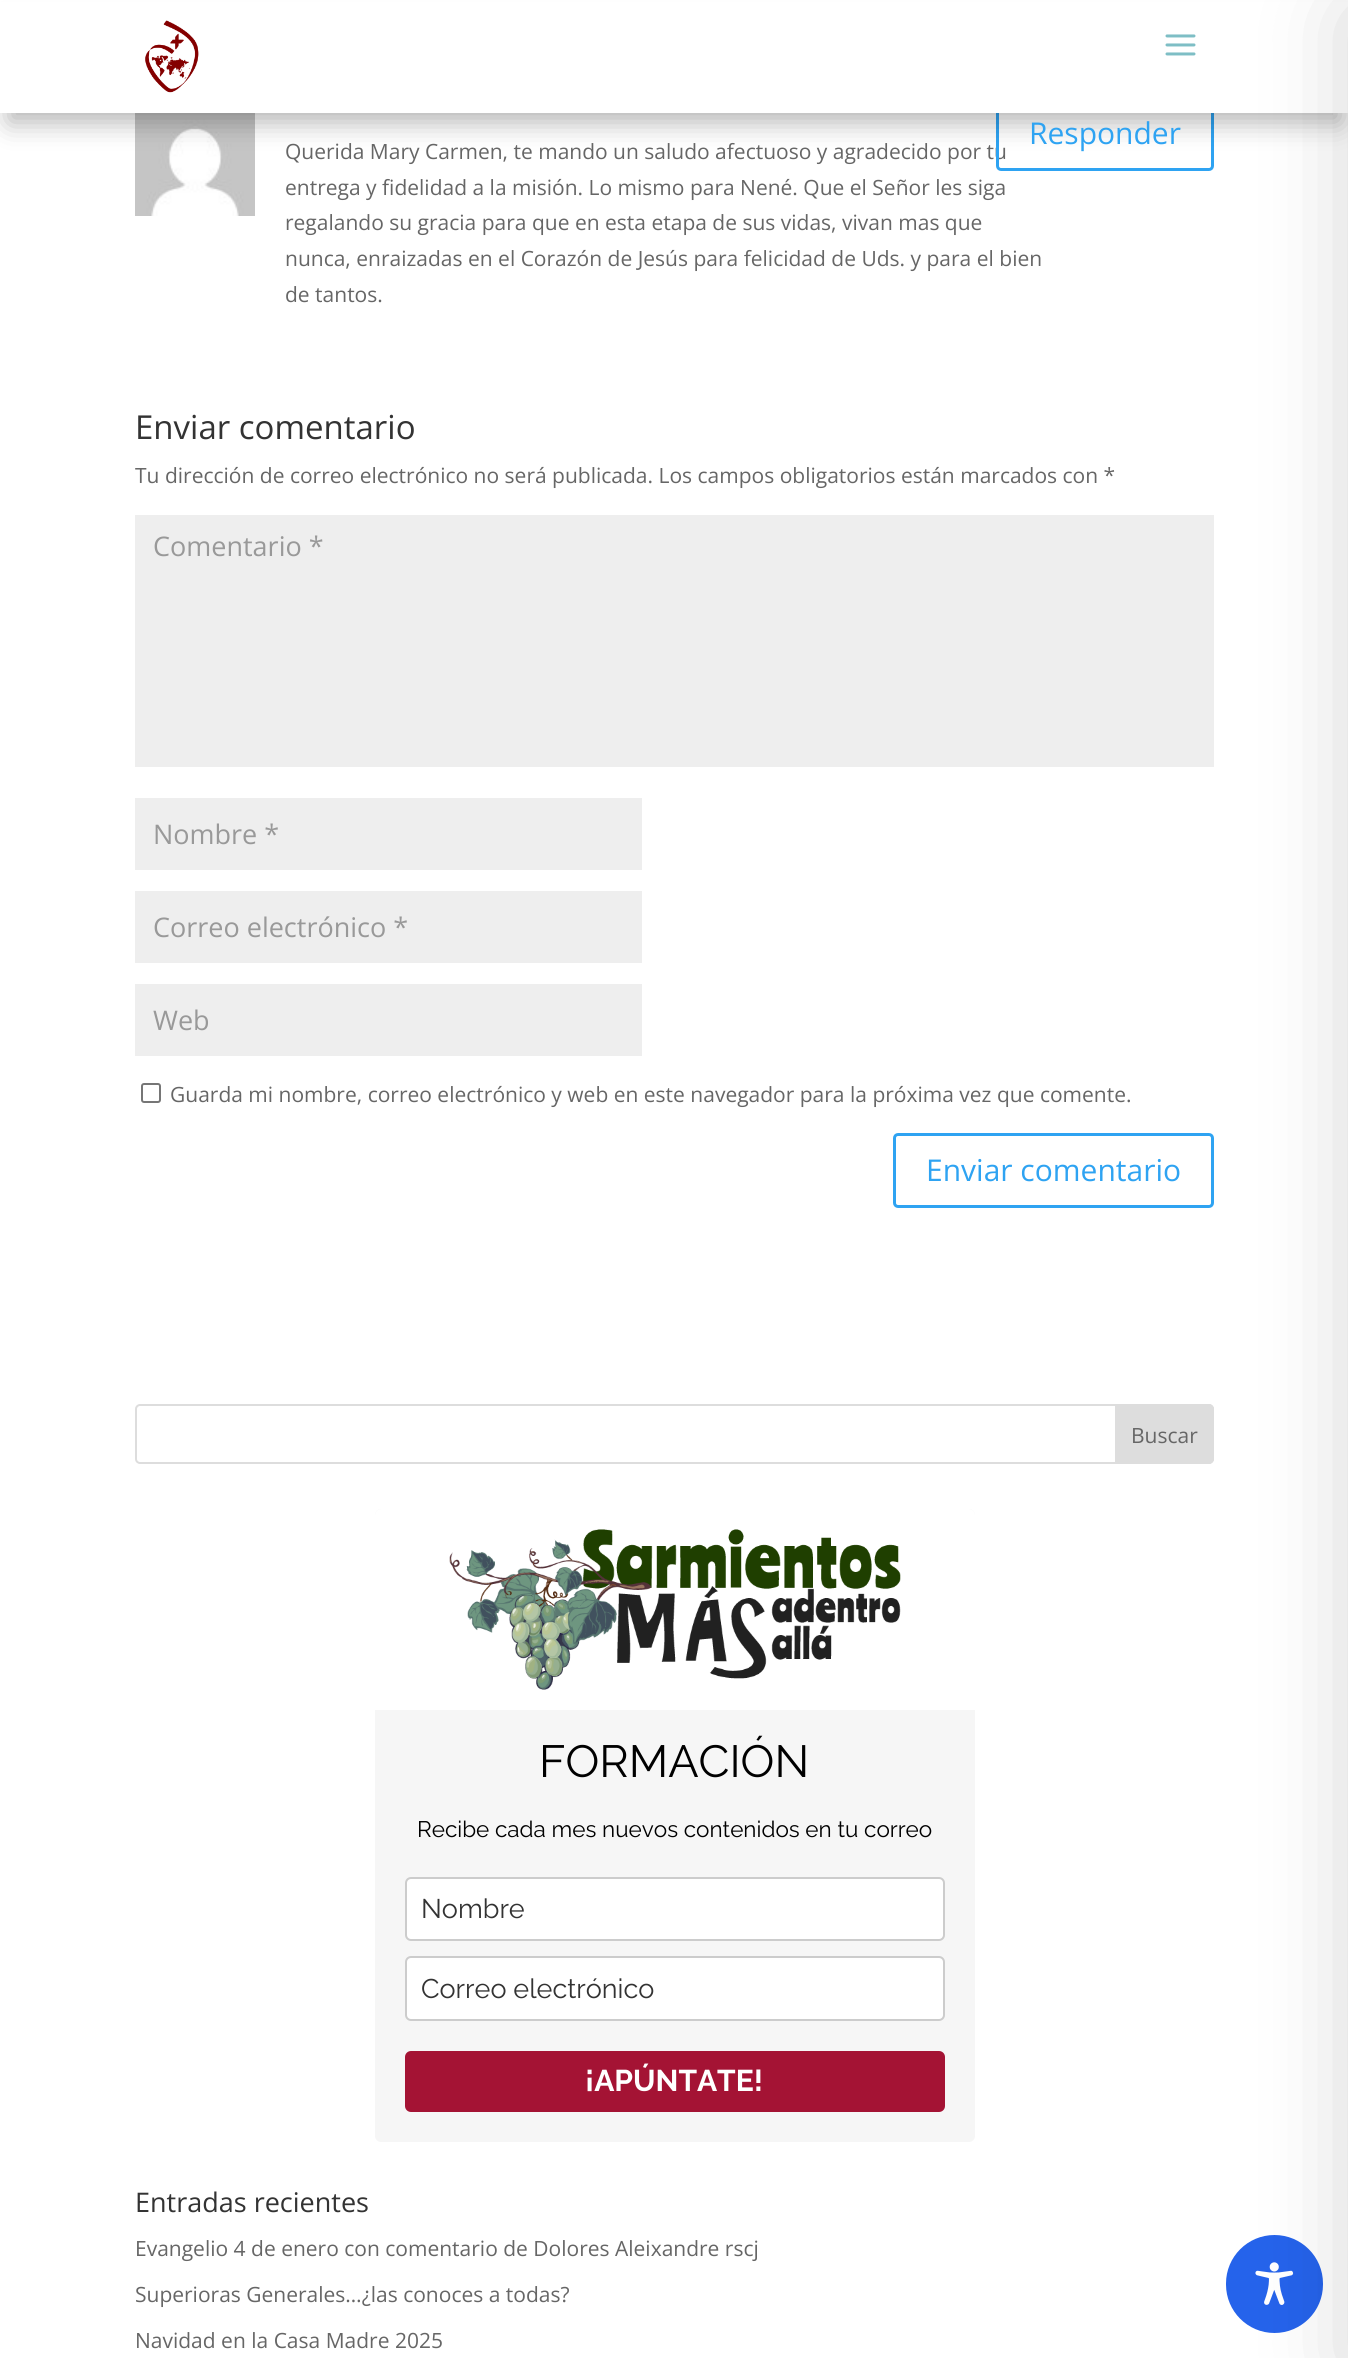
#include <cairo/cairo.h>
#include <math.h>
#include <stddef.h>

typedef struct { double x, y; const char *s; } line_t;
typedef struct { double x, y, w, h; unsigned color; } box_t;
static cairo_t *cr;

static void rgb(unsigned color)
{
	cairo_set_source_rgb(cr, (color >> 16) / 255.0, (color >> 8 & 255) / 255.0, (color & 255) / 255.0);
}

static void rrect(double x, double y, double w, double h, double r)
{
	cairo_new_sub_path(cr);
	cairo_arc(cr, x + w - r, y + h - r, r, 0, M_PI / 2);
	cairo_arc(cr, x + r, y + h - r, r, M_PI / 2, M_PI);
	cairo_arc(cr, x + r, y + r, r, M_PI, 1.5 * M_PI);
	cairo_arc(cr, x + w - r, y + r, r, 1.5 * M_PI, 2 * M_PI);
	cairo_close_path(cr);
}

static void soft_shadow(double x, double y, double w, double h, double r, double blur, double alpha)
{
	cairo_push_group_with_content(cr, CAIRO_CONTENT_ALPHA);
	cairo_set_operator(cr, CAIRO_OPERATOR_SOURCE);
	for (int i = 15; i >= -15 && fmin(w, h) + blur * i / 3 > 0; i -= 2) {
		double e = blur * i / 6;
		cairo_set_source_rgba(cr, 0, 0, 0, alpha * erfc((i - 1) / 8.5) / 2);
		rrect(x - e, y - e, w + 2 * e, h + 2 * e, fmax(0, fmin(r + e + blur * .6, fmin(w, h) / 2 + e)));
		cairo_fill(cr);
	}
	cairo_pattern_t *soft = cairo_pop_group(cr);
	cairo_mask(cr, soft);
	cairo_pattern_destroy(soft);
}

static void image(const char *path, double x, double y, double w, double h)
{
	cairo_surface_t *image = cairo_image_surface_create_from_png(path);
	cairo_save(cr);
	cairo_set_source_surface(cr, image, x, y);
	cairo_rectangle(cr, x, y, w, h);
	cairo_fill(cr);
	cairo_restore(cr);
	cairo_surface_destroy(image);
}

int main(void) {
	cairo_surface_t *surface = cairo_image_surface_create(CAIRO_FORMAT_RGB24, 1348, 2358);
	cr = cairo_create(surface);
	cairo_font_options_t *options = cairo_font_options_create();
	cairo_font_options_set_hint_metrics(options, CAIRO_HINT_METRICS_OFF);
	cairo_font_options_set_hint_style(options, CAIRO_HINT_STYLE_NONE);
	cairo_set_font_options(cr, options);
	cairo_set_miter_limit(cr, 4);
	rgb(0xffffff);
	cairo_paint(cr);
	image("img/3.png", 135, 113, 120, 103);
	{
		static const box_t items[] = {
			{135, 515, 1079, 252, 0xeeeeee},
			{135, 798, 507, 72, 0xeeeeee},
			{135, 891, 507, 72, 0xeeeeee},
			{135, 984, 507, 72, 0xeeeeee},
		};
		for (size_t i = 0; i < sizeof items / sizeof *items; i++) {
			rgb(items[i].color);
			cairo_rectangle(cr, items[i].x, items[i].y, items[i].w, items[i].h);
			cairo_fill(cr);
		}
	}
	rrect(142, 1084, 18, 18, 2);
	rgb(0x767676);
	cairo_stroke(cr);
	rrect(894.5, 1134.5, 318, 72, 3.5);
	rgb(0x2ea3f2);
	cairo_set_line_width(cr, 3);
	cairo_stroke(cr);
	rrect(136, 1405, 1077, 58, 4);
	rgb(0xdddddd);
	cairo_set_line_width(cr, 2);
	cairo_stroke(cr);
	cairo_new_path(cr);
	cairo_move_to(cr, 1116, 1405);
	cairo_line_to(cr, 1209, 1405);
	cairo_curve_to(cr, 1211, 1405, 1213, 1407, 1213, 1409);
	cairo_line_to(cr, 1213, 1459);
	cairo_curve_to(cr, 1213, 1461, 1211, 1463, 1209, 1463);
	cairo_line_to(cr, 1116, 1463);
	cairo_close_path(cr);
	cairo_fill_preserve(cr);
	cairo_stroke(cr);
	rgb(0xf6f6f6);
	rrect(375, 1509, 600, 633, 6);
	cairo_fill(cr);
	image("img/4.png", 375, 1509, 600, 201);
	rgb(0xffffff);
	rrect(406, 1878, 538, 62, 5);
	cairo_fill_preserve(cr);
	rgb(0xcccccc);
	cairo_stroke(cr);
	rgb(0xffffff);
	rrect(406, 1957, 538, 63, 5);
	cairo_fill_preserve(cr);
	rgb(0xcccccc);
	cairo_stroke(cr);
	rgb(0xa41334);
	rrect(405, 2051, 540, 61, 6);
	cairo_fill(cr);
	rgb(0x2563eb);
	rrect(1226, 2235, 97, 98, 48.5);
	cairo_fill(cr);
	image("img/5.png", 1255, 2262, 39, 43);
	cairo_select_font_face(cr, "Open Sans", CAIRO_FONT_SLANT_NORMAL, CAIRO_FONT_WEIGHT_NORMAL);
	cairo_set_font_size(cr, 21);
	rgb(0x666666);
	cairo_move_to(cr, 285, 159);
	cairo_show_text(cr, "Querida Mary Carmen, te mando un saludo afectuoso y agradecido por tu");
	rrect(997.5, 97.5, 215, 72, 3.5);
	rgb(0x2ea3f2);
	cairo_set_line_width(cr, 3);
	cairo_stroke(cr);
	rgb(0x000000);
	soft_shadow(9, 27, 1331, 95, 0, 13.5, 0.3);
	rgb(0xffffff);
	cairo_rectangle(cr, 0, 2, 1348, 111);
	cairo_fill(cr);
	image("img/2.png", 1165, 34, 31, 22);
	image("img/1.png", 145, 20, 54, 73);
	cairo_set_font_size(cr, 30);
	rgb(0x2ea3f2);
	cairo_move_to(cr, 1029, 144);
	cairo_show_text(cr, "Responder");
	cairo_set_font_size(cr, 21);
	rgb(0x666666);
	{
		static const line_t items[] = {
			{285, 195, "entrega y fidelidad a la misión. Lo mismo para Nené. Que el Señor les siga"},
			{285, 230, "regalando su gracia para que en esta etapa de sus vidas, vivan mas que"},
			{285, 266, "nunca, enraizadas en el Corazón de Jesús para felicidad de Uds. y para el bien"},
			{285, 302, "de tantos."},
		};
		for (size_t i = 0; i < sizeof items / sizeof *items; i++) {
			cairo_move_to(cr, items[i].x, items[i].y);
			cairo_show_text(cr, items[i].s);
		}
	}
	cairo_set_font_size(cr, 33);
	rgb(0x333333);
	cairo_move_to(cr, 135, 439);
	cairo_show_text(cr, "Enviar comentario");
	cairo_set_font_size(cr, 21);
	rgb(0x666666);
	cairo_move_to(cr, 135, 483);
	cairo_show_text(cr, "Tu dirección de correo electrónico no será publicada. Los campos obligatorios están marcados con *");
	cairo_set_font_size(cr, 27);
	rgb(0x999999);
	{
		static const line_t items[] = {
			{153, 556, "Comentario *"},
			{153, 844, "Nombre *"},
			{153, 937, "Correo electrónico *"},
			{153, 1030, "Web"},
		};
		for (size_t i = 0; i < sizeof items / sizeof *items; i++) {
			cairo_move_to(cr, items[i].x, items[i].y);
			cairo_show_text(cr, items[i].s);
		}
	}
	cairo_set_font_size(cr, 21);
	rgb(0x666666);
	cairo_move_to(cr, 170, 1102);
	cairo_show_text(cr, "Guarda mi nombre, correo electrónico y web en este navegador para la próxima vez que comente.");
	cairo_set_font_size(cr, 30);
	rgb(0x2ea3f2);
	cairo_move_to(cr, 926, 1181);
	cairo_show_text(cr, "Enviar comentario");
	cairo_set_font_size(cr, 21);
	rgb(0x666666);
	cairo_move_to(cr, 1131, 1443);
	cairo_show_text(cr, "Buscar");
	cairo_select_font_face(cr, "Raleway", CAIRO_FONT_SLANT_NORMAL, CAIRO_FONT_WEIGHT_NORMAL);
	cairo_set_font_size(cr, 45);
	rgb(0x000000);
	cairo_move_to(cr, 539, 1777);
	cairo_show_text(cr, "FORMACIÓN");
	cairo_set_font_size(cr, 22.5);
	cairo_move_to(cr, 417, 1837);
	cairo_show_text(cr, "Recibe cada mes nuevos contenidos en tu correo");
	cairo_set_font_size(cr, 27);
	rgb(0x333333);
	cairo_move_to(cr, 421, 1918);
	cairo_show_text(cr, "Nombre");
	cairo_move_to(cr, 421, 1998);
	cairo_show_text(cr, "Correo electrónico");
	cairo_select_font_face(cr, "Raleway", CAIRO_FONT_SLANT_NORMAL, CAIRO_FONT_WEIGHT_BOLD);
	cairo_set_font_size(cr, 30);
	rgb(0xffffff);
	cairo_move_to(cr, 585, 2091);
	cairo_show_text(cr, "¡APÚNTATE!");
	cairo_select_font_face(cr, "Open Sans", CAIRO_FONT_SLANT_NORMAL, CAIRO_FONT_WEIGHT_NORMAL);
	cairo_set_font_size(cr, 27);
	rgb(0x333333);
	cairo_move_to(cr, 135, 2212);
	cairo_show_text(cr, "Entradas recientes");
	cairo_set_font_size(cr, 21);
	rgb(0x666666);
	{
		static const line_t items[] = {
			{135, 2256, "Evangelio 4 de enero con comentario de Dolores Aleixandre rscj"},
			{135, 2302, "Superioras Generales…¿las conoces a todas?"},
			{135, 2348, "Navidad en la Casa Madre 2025"},
		};
		for (size_t i = 0; i < sizeof items / sizeof *items; i++) {
			cairo_move_to(cr, items[i].x, items[i].y);
			cairo_show_text(cr, items[i].s);
		}
	}
	rgb(0x000000);
	soft_shadow(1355, 15, 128, 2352, 0, 45, 0.2);
	cairo_surface_write_to_png(surface, "page.png");
	cairo_font_options_destroy(options);
	cairo_destroy(cr);
	cairo_surface_destroy(surface);
	return 0;
}
